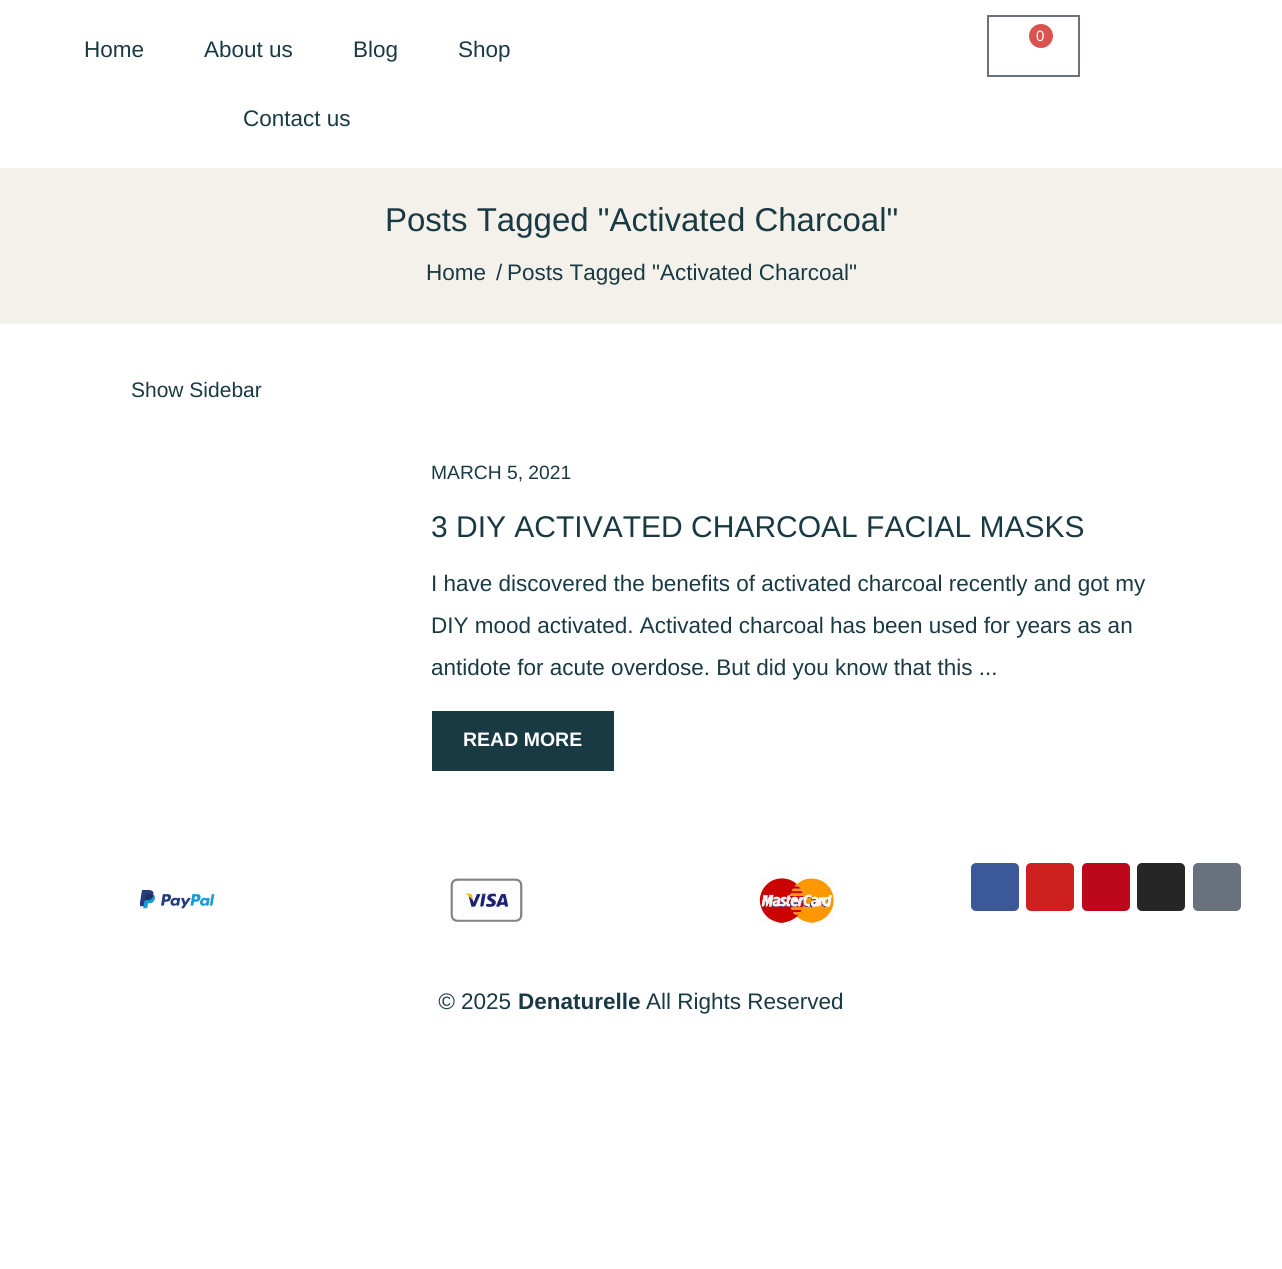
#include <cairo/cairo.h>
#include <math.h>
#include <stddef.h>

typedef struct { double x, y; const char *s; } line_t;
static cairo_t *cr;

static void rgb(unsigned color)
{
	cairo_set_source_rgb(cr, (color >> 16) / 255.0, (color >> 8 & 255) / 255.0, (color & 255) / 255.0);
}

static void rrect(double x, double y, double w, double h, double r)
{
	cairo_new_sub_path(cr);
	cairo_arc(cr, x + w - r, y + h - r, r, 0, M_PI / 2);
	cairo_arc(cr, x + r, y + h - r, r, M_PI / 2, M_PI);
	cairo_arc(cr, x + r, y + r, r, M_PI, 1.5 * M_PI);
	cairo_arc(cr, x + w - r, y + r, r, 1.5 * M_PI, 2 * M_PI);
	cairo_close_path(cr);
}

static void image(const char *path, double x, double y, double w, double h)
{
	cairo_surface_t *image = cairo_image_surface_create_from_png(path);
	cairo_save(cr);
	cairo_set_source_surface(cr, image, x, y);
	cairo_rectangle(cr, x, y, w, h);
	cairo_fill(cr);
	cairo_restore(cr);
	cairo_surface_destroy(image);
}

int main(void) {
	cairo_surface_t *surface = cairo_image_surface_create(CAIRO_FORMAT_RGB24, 1282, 1269);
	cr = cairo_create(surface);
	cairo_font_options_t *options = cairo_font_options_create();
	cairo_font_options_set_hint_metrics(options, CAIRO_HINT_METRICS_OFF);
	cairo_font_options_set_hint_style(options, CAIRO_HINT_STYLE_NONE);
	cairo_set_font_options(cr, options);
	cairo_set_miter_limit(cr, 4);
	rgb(0xffffff);
	cairo_paint(cr);
	cairo_rectangle(cr, 988, 16, 91, 60);
	rgb(0x69727d);
	cairo_stroke(cr);
	rgb(0xd9534f);
	cairo_arc(cr, 1041, 36, 12, 0, 2 * M_PI);
	cairo_fill(cr);
	rgb(0xf4f1eb);
	cairo_rectangle(cr, 0, 168, 1282, 156);
	cairo_fill(cr);
	rgb(0x193a43);
	cairo_rectangle(cr, 432, 711, 182, 60);
	cairo_fill(cr);
	image("img/1.png", 140, 890, 75, 19);
	image("img/2.png", 450, 878, 73, 44);
	image("img/3.png", 759, 878, 75, 45);
	rgb(0x3b5998);
	rrect(971, 863, 48, 48, 5);
	cairo_fill(cr);
	rgb(0xcd201f);
	rrect(1026, 863, 48, 48, 5);
	cairo_fill(cr);
	rgb(0xbd081c);
	rrect(1082, 863, 48, 48, 5);
	cairo_fill(cr);
	rgb(0x262626);
	rrect(1137, 863, 48, 48, 5);
	cairo_fill(cr);
	rgb(0x69727d);
	rrect(1193, 863, 48, 48, 5);
	cairo_fill(cr);
	cairo_select_font_face(cr, "Liberation Sans", CAIRO_FONT_SLANT_NORMAL, CAIRO_FONT_WEIGHT_NORMAL);
	cairo_set_font_size(cr, 15);
	rgb(0xffffff);
	cairo_move_to(cr, 1036, 41);
	cairo_show_text(cr, "0");
	cairo_set_font_size(cr, 22.5);
	rgb(0x193a43);
	{
		static const line_t items[] = {
			{84, 57, "Home"},
			{204, 57, "About us"},
			{353, 57, "Blog"},
			{458, 57, "Shop"},
			{243, 126, "Contact us"},
		};
		for (size_t i = 0; i < sizeof items / sizeof *items; i++) {
			cairo_move_to(cr, items[i].x, items[i].y);
			cairo_show_text(cr, items[i].s);
		}
	}
	cairo_set_font_size(cr, 33);
	cairo_move_to(cr, 385, 231);
	cairo_show_text(cr, "Posts Tagged \"Activated Charcoal\"");
	cairo_set_font_size(cr, 22.5);
	{
		static const line_t items[] = {
			{426, 280, "Home"},
			{496, 280, "/"},
			{507, 280, "Posts Tagged \"Activated Charcoal\""},
		};
		for (size_t i = 0; i < sizeof items / sizeof *items; i++) {
			cairo_move_to(cr, items[i].x, items[i].y);
			cairo_show_text(cr, items[i].s);
		}
	}
	cairo_set_font_size(cr, 21);
	cairo_move_to(cr, 131, 397);
	cairo_show_text(cr, "Show Sidebar");
	cairo_set_font_size(cr, 19.25);
	cairo_move_to(cr, 431, 479);
	cairo_show_text(cr, "MARCH 5, 2021");
	cairo_set_font_size(cr, 30);
	cairo_move_to(cr, 431, 537);
	cairo_show_text(cr, "3 DIY ACTIVATED CHARCOAL FACIAL MASKS");
	cairo_set_font_size(cr, 22.5);
	{
		static const line_t items[] = {
			{431, 591, "I have discovered the benefits of activated charcoal recently and got my"},
			{431, 633, "DIY mood activated. Activated charcoal has been used for years as an"},
			{431, 675, "antidote for acute overdose. But did you know that this ..."},
		};
		for (size_t i = 0; i < sizeof items / sizeof *items; i++) {
			cairo_move_to(cr, items[i].x, items[i].y);
			cairo_show_text(cr, items[i].s);
		}
	}
	cairo_select_font_face(cr, "Liberation Sans", CAIRO_FONT_SLANT_NORMAL, CAIRO_FONT_WEIGHT_BOLD);
	cairo_set_font_size(cr, 19.5);
	rgb(0xffffff);
	cairo_move_to(cr, 463, 746);
	cairo_show_text(cr, "READ MORE");
	cairo_select_font_face(cr, "Liberation Sans", CAIRO_FONT_SLANT_ITALIC, CAIRO_FONT_WEIGHT_NORMAL);
	cairo_set_font_size(cr, 22.5);
	rgb(0x193a43);
	cairo_move_to(cr, 438, 1009);
	cairo_show_text(cr, "©");
	cairo_select_font_face(cr, "Liberation Sans", CAIRO_FONT_SLANT_NORMAL, CAIRO_FONT_WEIGHT_NORMAL);
	cairo_move_to(cr, 461, 1009);
	cairo_show_text(cr, "2025");
	cairo_select_font_face(cr, "Liberation Sans", CAIRO_FONT_SLANT_NORMAL, CAIRO_FONT_WEIGHT_BOLD);
	cairo_move_to(cr, 518, 1009);
	cairo_show_text(cr, "Denaturelle");
	cairo_select_font_face(cr, "Liberation Sans", CAIRO_FONT_SLANT_NORMAL, CAIRO_FONT_WEIGHT_NORMAL);
	cairo_move_to(cr, 646, 1009);
	cairo_show_text(cr, "All Rights Reserved");
	cairo_surface_write_to_png(surface, "page.png");
	cairo_font_options_destroy(options);
	cairo_destroy(cr);
	cairo_surface_destroy(surface);
	return 0;
}
